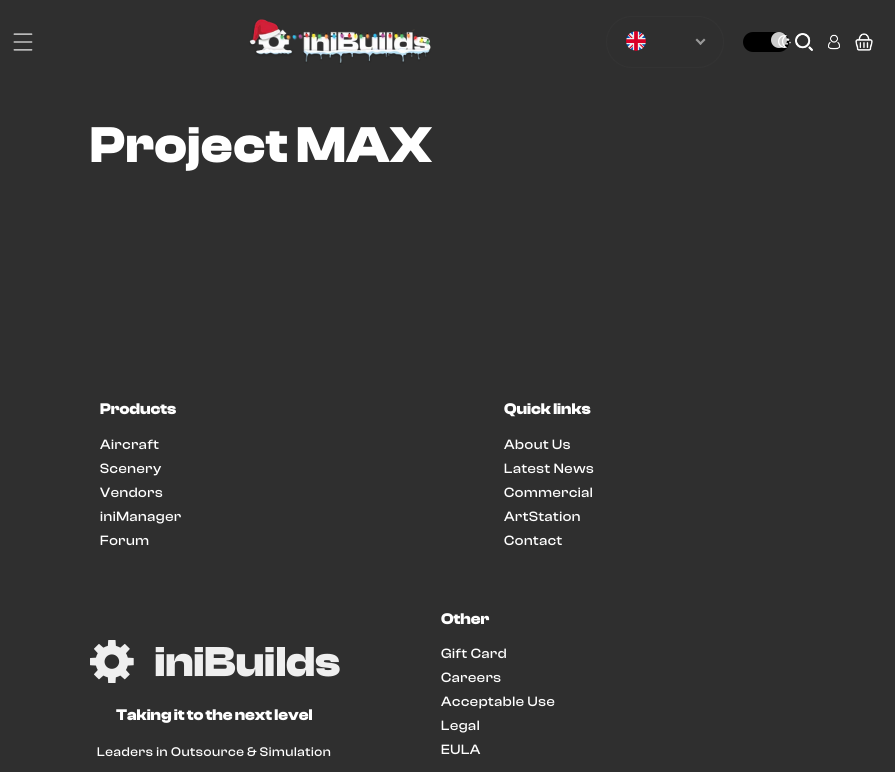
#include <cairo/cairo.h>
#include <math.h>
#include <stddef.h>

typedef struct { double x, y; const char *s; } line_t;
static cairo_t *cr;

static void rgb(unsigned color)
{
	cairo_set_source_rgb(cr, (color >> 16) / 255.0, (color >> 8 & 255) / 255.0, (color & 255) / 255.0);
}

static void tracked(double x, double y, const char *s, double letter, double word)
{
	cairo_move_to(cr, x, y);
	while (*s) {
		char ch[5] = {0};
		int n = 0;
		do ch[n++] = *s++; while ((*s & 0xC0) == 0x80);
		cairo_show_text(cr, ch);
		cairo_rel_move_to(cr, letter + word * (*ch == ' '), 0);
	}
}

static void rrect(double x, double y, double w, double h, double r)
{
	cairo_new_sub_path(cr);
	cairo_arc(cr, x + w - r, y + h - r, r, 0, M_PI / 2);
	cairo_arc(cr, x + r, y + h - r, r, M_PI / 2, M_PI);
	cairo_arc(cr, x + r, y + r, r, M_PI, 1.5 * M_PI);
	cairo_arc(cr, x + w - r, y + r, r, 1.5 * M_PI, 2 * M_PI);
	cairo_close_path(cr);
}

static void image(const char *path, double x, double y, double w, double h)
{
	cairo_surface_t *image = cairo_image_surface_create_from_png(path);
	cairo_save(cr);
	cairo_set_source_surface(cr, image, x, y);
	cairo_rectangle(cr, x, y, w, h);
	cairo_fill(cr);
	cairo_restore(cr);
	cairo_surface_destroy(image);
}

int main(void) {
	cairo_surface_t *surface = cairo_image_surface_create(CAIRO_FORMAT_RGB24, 895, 772);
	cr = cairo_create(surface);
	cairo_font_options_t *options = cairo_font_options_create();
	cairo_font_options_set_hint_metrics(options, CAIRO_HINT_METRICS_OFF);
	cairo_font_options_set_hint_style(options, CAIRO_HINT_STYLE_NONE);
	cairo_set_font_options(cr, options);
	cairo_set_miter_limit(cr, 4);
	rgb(0x2f2f2f);
	cairo_paint(cr);
	image("img/1.png", 13, 33, 20, 18);
	image("img/2.png", 249, 19, 182, 45);
	rrect(606.5, 16.5, 117, 51, 25.5);
	rgb(0x333333);
	cairo_set_line_width(cr, 1);
	cairo_stroke(cr);
	image("img/3.png", 626, 31, 20, 20);
	rgb(0x999999);
	cairo_new_path(cr);
	cairo_move_to(cr, 704, 38.5);
	cairo_line_to(cr, 705.5, 40);
	cairo_line_to(cr, 700.5, 45);
	cairo_line_to(cr, 699, 43.5);
	cairo_close_path(cr);
	cairo_fill(cr);
	cairo_new_path(cr);
	cairo_move_to(cr, 697, 38.5);
	cairo_line_to(cr, 702, 43.5);
	cairo_line_to(cr, 700.5, 45);
	cairo_line_to(cr, 695.5, 40);
	cairo_close_path(cr);
	cairo_fill(cr);
	rgb(0x000000);
	rrect(743, 32, 46, 20, 10);
	cairo_fill(cr);
	rgb(0xcccccc);
	cairo_arc(cr, 779, 40, 8, 0, 2 * M_PI);
	cairo_fill(cr);
	image("img/4.png", 778, 35, 13, 13);
	image("img/5.png", 795, 33, 18, 18);
	image("img/6.png", 828, 34, 12, 16);
	image("img/7.png", 855, 33, 18, 18);
	image("img/8.png", 90, 640, 250, 43);
	cairo_select_font_face(cr, "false", CAIRO_FONT_SLANT_NORMAL, CAIRO_FONT_WEIGHT_BOLD);
	cairo_set_font_size(cr, 52);
	rgb(0xffffff);
	tracked(90, 162, "Project MAX", 0.6, 0);
	cairo_set_font_size(cr, 16);
	cairo_move_to(cr, 100, 414);
	cairo_show_text(cr, "Products");
	cairo_select_font_face(cr, "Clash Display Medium", CAIRO_FONT_SLANT_NORMAL, CAIRO_FONT_WEIGHT_NORMAL);
	cairo_set_font_size(cr, 14);
	{
		static const line_t items[] = {
			{100, 449, "Aircraft"},
			{100, 473, "Scenery"},
			{100, 497, "Vendors"},
			{100, 521, "iniManager"},
			{100, 545, "Forum"},
		};
		for (size_t i = 0; i < sizeof items / sizeof *items; i++) {
			tracked(items[i].x, items[i].y, items[i].s, 0.6, 0);
		}
	}
	cairo_select_font_face(cr, "false", CAIRO_FONT_SLANT_NORMAL, CAIRO_FONT_WEIGHT_BOLD);
	cairo_set_font_size(cr, 16);
	cairo_move_to(cr, 504, 414);
	cairo_show_text(cr, "Quick links");
	cairo_select_font_face(cr, "Clash Display Medium", CAIRO_FONT_SLANT_NORMAL, CAIRO_FONT_WEIGHT_NORMAL);
	cairo_set_font_size(cr, 14);
	{
		static const line_t items[] = {
			{504, 449, "About Us"},
			{504, 473, "Latest News"},
			{504, 497, "Commercial"},
			{504, 521, "ArtStation"},
			{504, 545, "Contact"},
		};
		for (size_t i = 0; i < sizeof items / sizeof *items; i++) {
			tracked(items[i].x, items[i].y, items[i].s, 0.6, 0);
		}
	}
	cairo_select_font_face(cr, "false", CAIRO_FONT_SLANT_NORMAL, CAIRO_FONT_WEIGHT_BOLD);
	cairo_set_font_size(cr, 16);
	cairo_move_to(cr, 116, 720);
	cairo_show_text(cr, "Taking it to the next level");
	cairo_select_font_face(cr, "Clash Display Medium", CAIRO_FONT_SLANT_NORMAL, CAIRO_FONT_WEIGHT_NORMAL);
	cairo_set_font_size(cr, 13);
	tracked(97, 756, "Leaders in Outsource & Simulation", 0.6, 0);
	cairo_select_font_face(cr, "false", CAIRO_FONT_SLANT_NORMAL, CAIRO_FONT_WEIGHT_BOLD);
	cairo_set_font_size(cr, 16);
	cairo_move_to(cr, 441, 624);
	cairo_show_text(cr, "Other");
	cairo_select_font_face(cr, "Clash Display Medium", CAIRO_FONT_SLANT_NORMAL, CAIRO_FONT_WEIGHT_NORMAL);
	cairo_set_font_size(cr, 14);
	{
		static const line_t items[] = {
			{441, 658, "Gift Card"},
			{441, 682, "Careers"},
			{441, 706, "Acceptable Use"},
			{441, 730, "Legal"},
			{441, 754, "EULA"},
		};
		for (size_t i = 0; i < sizeof items / sizeof *items; i++) {
			tracked(items[i].x, items[i].y, items[i].s, 0.6, 0);
		}
	}
	cairo_surface_write_to_png(surface, "page.png");
	cairo_font_options_destroy(options);
	cairo_destroy(cr);
	cairo_surface_destroy(surface);
	return 0;
}
